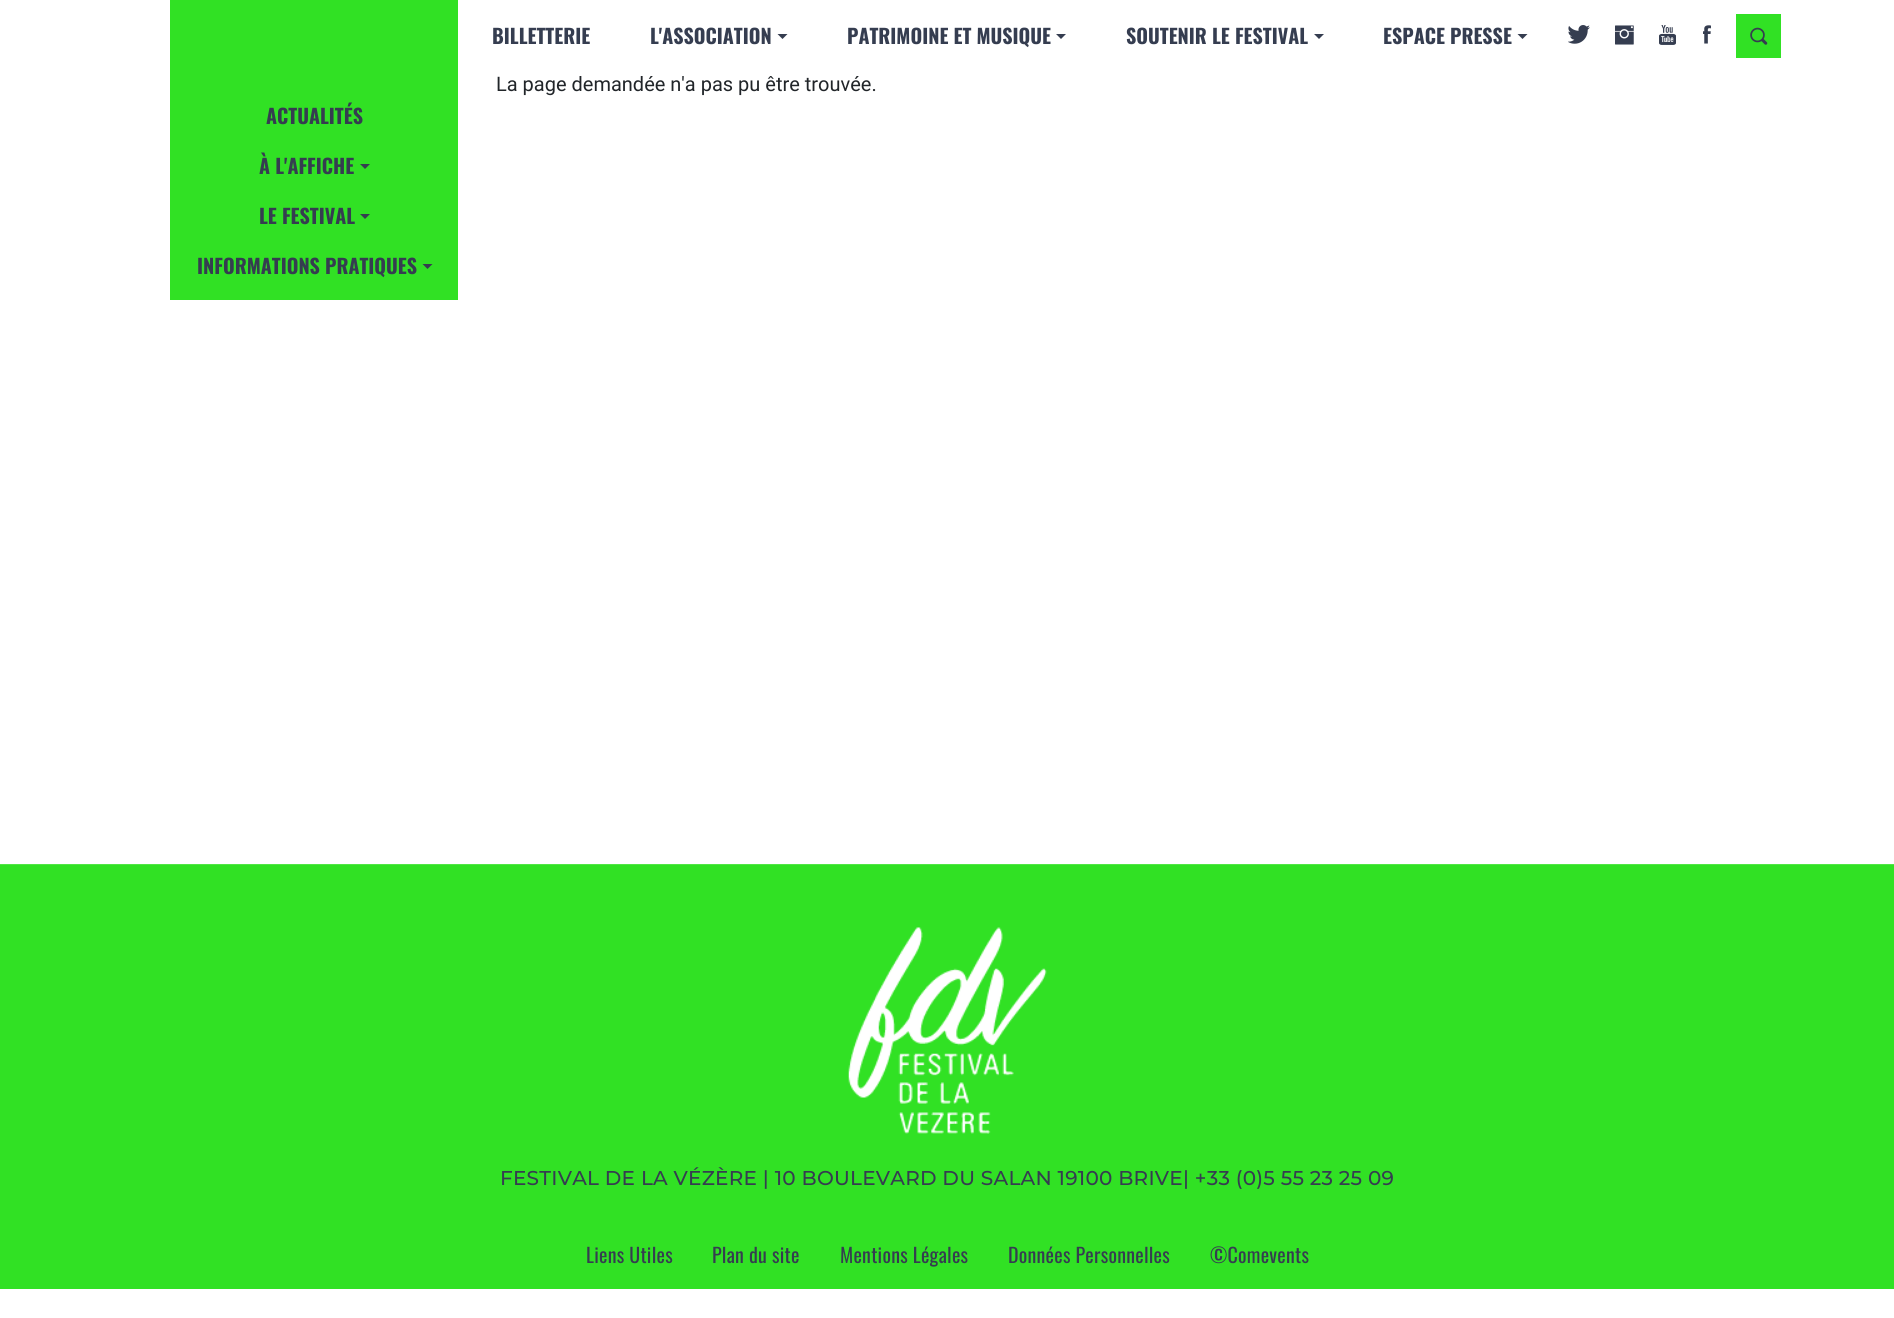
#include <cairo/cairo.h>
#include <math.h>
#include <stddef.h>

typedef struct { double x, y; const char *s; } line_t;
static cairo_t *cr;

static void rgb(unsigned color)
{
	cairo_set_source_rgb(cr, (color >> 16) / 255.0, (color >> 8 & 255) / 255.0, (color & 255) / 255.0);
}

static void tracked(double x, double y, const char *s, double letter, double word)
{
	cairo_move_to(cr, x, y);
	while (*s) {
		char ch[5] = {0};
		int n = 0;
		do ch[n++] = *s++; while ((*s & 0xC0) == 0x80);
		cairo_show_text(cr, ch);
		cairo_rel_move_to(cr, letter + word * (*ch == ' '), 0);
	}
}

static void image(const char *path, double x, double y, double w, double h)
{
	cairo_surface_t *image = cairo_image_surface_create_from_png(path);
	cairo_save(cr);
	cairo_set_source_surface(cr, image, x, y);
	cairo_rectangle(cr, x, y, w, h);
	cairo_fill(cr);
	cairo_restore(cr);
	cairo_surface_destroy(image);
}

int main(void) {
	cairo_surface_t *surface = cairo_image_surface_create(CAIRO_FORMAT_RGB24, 1894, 1318);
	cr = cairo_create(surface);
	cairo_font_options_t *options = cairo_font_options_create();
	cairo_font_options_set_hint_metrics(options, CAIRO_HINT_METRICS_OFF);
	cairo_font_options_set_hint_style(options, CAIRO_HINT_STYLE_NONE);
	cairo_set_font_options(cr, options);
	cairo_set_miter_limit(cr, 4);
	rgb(0xffffff);
	cairo_paint(cr);
	rgb(0x353d50);
	cairo_new_path(cr);
	cairo_move_to(cr, 777.5, 34);
	cairo_line_to(cr, 787.5, 34);
	cairo_line_to(cr, 782.5, 39);
	cairo_close_path(cr);
	cairo_fill(cr);
	cairo_new_path(cr);
	cairo_move_to(cr, 1056, 34);
	cairo_line_to(cr, 1066, 34);
	cairo_line_to(cr, 1061, 39);
	cairo_close_path(cr);
	cairo_fill(cr);
	cairo_new_path(cr);
	cairo_move_to(cr, 1314, 34);
	cairo_line_to(cr, 1324, 34);
	cairo_line_to(cr, 1319, 39);
	cairo_close_path(cr);
	cairo_fill(cr);
	cairo_new_path(cr);
	cairo_move_to(cr, 1517.5, 34);
	cairo_line_to(cr, 1527.5, 34);
	cairo_line_to(cr, 1522.5, 39);
	cairo_close_path(cr);
	cairo_fill(cr);
	image("img/1.png", 1568, 25, 22, 19);
	image("img/2.png", 1615, 25, 19, 20);
	image("img/3.png", 1659, 25, 17, 20);
	image("img/4.png", 1703, 25, 8, 19);
	image("img/5.png", 1736, 14, 45, 44);
	rgb(0x31e124);
	cairo_rectangle(cr, 170, 0, 288, 300);
	cairo_fill(cr);
	rgb(0x353d50);
	cairo_new_path(cr);
	cairo_move_to(cr, 360, 164);
	cairo_line_to(cr, 370, 164);
	cairo_line_to(cr, 365, 169);
	cairo_close_path(cr);
	cairo_fill(cr);
	cairo_new_path(cr);
	cairo_move_to(cr, 360, 214);
	cairo_line_to(cr, 370, 214);
	cairo_line_to(cr, 365, 219);
	cairo_close_path(cr);
	cairo_fill(cr);
	cairo_new_path(cr);
	cairo_move_to(cr, 422.5, 264);
	cairo_line_to(cr, 432.5, 264);
	cairo_line_to(cr, 427.5, 269);
	cairo_close_path(cr);
	cairo_fill(cr);
	rgb(0x31e124);
	cairo_rectangle(cr, 0, 865, 1894, 424);
	cairo_fill(cr);
	rgb(0x50e645);
	cairo_rectangle(cr, 0, 864, 1894, 1);
	cairo_fill(cr);
	image("img/6.png", 848, 927, 199, 207);
	cairo_select_font_face(cr, "Oswald", CAIRO_FONT_SLANT_NORMAL, CAIRO_FONT_WEIGHT_BOLD);
	cairo_set_font_size(cr, 20);
	rgb(0x353d50);
	{
		static const line_t items[] = {
			{492, 44, "BILLETTERIE"},
			{650, 44, "L'ASSOCIATION"},
			{847, 44, "PATRIMOINE ET MUSIQUE"},
			{1126, 44, "SOUTENIR LE FESTIVAL"},
			{1383, 44, "ESPACE PRESSE"},
			{266, 124, "ACTUALITÉS"},
			{259, 174, "À L'AFFICHE"},
			{259, 224, "LE FESTIVAL"},
			{197, 274, "INFORMATIONS PRATIQUES"},
		};
		for (size_t i = 0; i < sizeof items / sizeof *items; i++) {
			cairo_move_to(cr, items[i].x, items[i].y);
			cairo_show_text(cr, items[i].s);
		}
	}
	cairo_select_font_face(cr, "Roboto", CAIRO_FONT_SLANT_NORMAL, CAIRO_FONT_WEIGHT_NORMAL);
	rgb(0x212529);
	cairo_move_to(cr, 496, 91);
	cairo_show_text(cr, "La page demandée n'a pas pu être trouvée.");
	cairo_select_font_face(cr, "Montserrat Medium", CAIRO_FONT_SLANT_NORMAL, CAIRO_FONT_WEIGHT_NORMAL);
	rgb(0x353d50);
	tracked(500, 1185, "FESTIVAL DE LA VÉZÈRE | 10 BOULEVARD DU SALAN 19100 BRIVE| +33 (0)5 55 23 25 09", 0.25, 0);
	cairo_select_font_face(cr, "Oswald", CAIRO_FONT_SLANT_NORMAL, CAIRO_FONT_WEIGHT_NORMAL);
	{
		static const line_t items[] = {
			{586, 1263, "Liens Utiles"},
			{712, 1263, "Plan du site"},
			{840, 1263, "Mentions Légales"},
			{1008, 1263, "Données Personnelles"},
			{1210, 1263, "©Comevents"},
		};
		for (size_t i = 0; i < sizeof items / sizeof *items; i++) {
			tracked(items[i].x, items[i].y, items[i].s, 0.25, 0);
		}
	}
	cairo_surface_write_to_png(surface, "page.png");
	cairo_font_options_destroy(options);
	cairo_destroy(cr);
	cairo_surface_destroy(surface);
	return 0;
}
